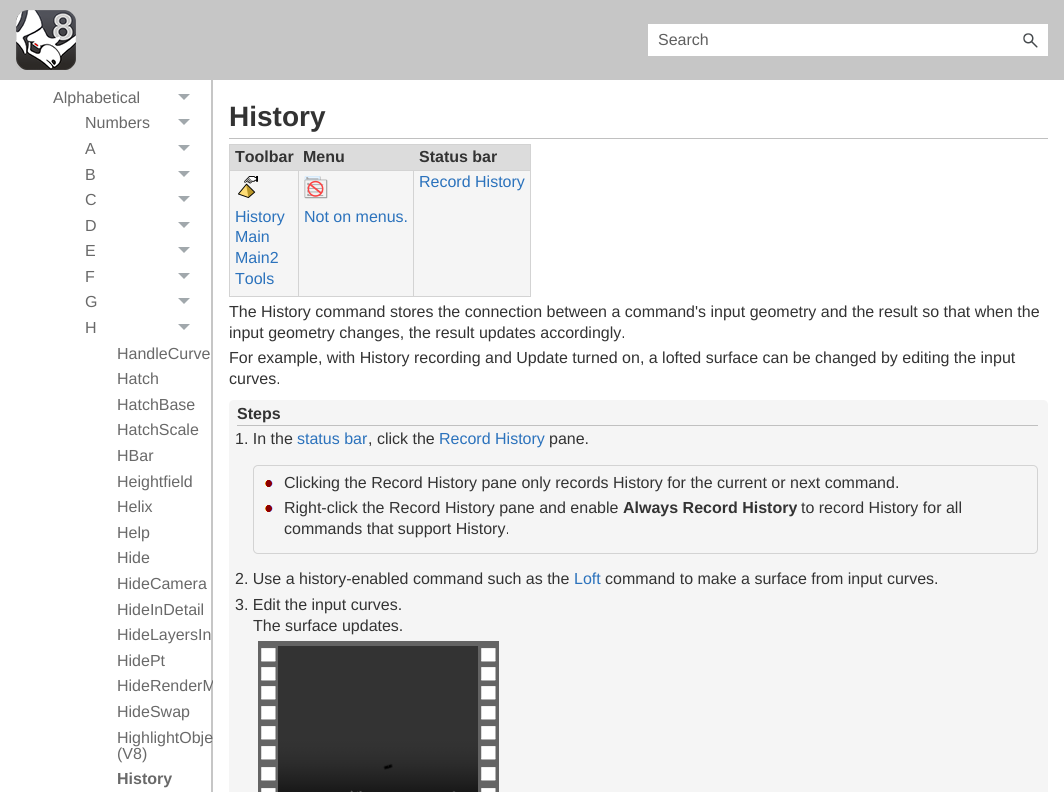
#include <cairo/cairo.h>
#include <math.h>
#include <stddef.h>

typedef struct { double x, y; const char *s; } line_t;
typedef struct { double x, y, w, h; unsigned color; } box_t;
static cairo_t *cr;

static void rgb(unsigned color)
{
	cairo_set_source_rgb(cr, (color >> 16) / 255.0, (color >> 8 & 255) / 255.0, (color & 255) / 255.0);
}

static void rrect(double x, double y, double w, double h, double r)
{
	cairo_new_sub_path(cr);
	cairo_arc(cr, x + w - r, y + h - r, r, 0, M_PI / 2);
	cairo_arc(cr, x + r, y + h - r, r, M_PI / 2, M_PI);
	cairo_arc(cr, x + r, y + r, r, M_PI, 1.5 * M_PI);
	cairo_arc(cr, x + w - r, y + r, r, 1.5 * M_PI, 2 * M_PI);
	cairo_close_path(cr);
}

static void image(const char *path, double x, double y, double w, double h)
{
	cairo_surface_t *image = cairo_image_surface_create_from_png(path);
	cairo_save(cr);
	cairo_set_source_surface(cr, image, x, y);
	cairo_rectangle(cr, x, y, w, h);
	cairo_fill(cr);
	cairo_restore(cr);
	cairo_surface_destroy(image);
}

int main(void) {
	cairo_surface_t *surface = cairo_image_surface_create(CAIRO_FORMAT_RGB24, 1064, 792);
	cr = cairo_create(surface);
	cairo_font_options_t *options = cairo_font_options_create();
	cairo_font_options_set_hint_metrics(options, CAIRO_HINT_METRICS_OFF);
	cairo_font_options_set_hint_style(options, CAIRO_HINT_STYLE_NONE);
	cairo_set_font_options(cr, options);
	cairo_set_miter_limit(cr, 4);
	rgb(0xffffff);
	cairo_paint(cr);
	rgb(0xc6c6c6);
	cairo_rectangle(cr, 0, 0, 1064, 80);
	cairo_fill(cr);
	image("img/1.png", 16, 10, 60, 60);
	rgb(0xffffff);
	cairo_rectangle(cr, 648, 24, 400, 32);
	cairo_fill(cr);
	image("img/2.png", 1023, 33, 15, 15);
	rgb(0xc6c6c6);
	cairo_rectangle(cr, 211, 80, 2, 712);
	cairo_fill(cr);
	rgb(0xa1a8ac);
	cairo_new_path(cr);
	cairo_move_to(cr, 178, 94);
	cairo_line_to(cr, 190, 94);
	cairo_line_to(cr, 184, 100);
	cairo_close_path(cr);
	cairo_fill(cr);
	cairo_new_path(cr);
	cairo_move_to(cr, 178, 119);
	cairo_line_to(cr, 190, 119);
	cairo_line_to(cr, 184, 125);
	cairo_close_path(cr);
	cairo_fill(cr);
	cairo_new_path(cr);
	cairo_move_to(cr, 178, 145);
	cairo_line_to(cr, 190, 145);
	cairo_line_to(cr, 184, 151);
	cairo_close_path(cr);
	cairo_fill(cr);
	cairo_new_path(cr);
	cairo_move_to(cr, 178, 171);
	cairo_line_to(cr, 190, 171);
	cairo_line_to(cr, 184, 177);
	cairo_close_path(cr);
	cairo_fill(cr);
	cairo_new_path(cr);
	cairo_move_to(cr, 178, 196);
	cairo_line_to(cr, 190, 196);
	cairo_line_to(cr, 184, 202);
	cairo_close_path(cr);
	cairo_fill(cr);
	cairo_new_path(cr);
	cairo_move_to(cr, 178, 222);
	cairo_line_to(cr, 190, 222);
	cairo_line_to(cr, 184, 228);
	cairo_close_path(cr);
	cairo_fill(cr);
	cairo_new_path(cr);
	cairo_move_to(cr, 178, 247);
	cairo_line_to(cr, 190, 247);
	cairo_line_to(cr, 184, 253);
	cairo_close_path(cr);
	cairo_fill(cr);
	cairo_new_path(cr);
	cairo_move_to(cr, 178, 273);
	cairo_line_to(cr, 190, 273);
	cairo_line_to(cr, 184, 279);
	cairo_close_path(cr);
	cairo_fill(cr);
	cairo_new_path(cr);
	cairo_move_to(cr, 178, 298);
	cairo_line_to(cr, 190, 298);
	cairo_line_to(cr, 184, 304);
	cairo_close_path(cr);
	cairo_fill(cr);
	cairo_new_path(cr);
	cairo_move_to(cr, 178, 324);
	cairo_line_to(cr, 190, 324);
	cairo_line_to(cr, 184, 330);
	cairo_close_path(cr);
	cairo_fill(cr);
	rgb(0xc0c0c0);
	cairo_rectangle(cr, 229, 138, 819, 1);
	cairo_fill(cr);
	rgb(0xf5f5f5);
	rrect(229, 144, 302, 153, 5);
	cairo_fill(cr);
	{
		static const box_t items[] = {
			{229, 144, 302, 1, 0xd3d3d3},
			{530, 144, 1, 153, 0xd3d3d3},
			{229, 296, 302, 1, 0xd3d3d3},
			{229, 144, 1, 153, 0xd3d3d3},
			{230, 145, 300, 25, 0xdcdcdc},
			{413, 170, 118, 1, 0xd3d3d3},
			{413, 170, 1, 127, 0xd3d3d3},
			{298, 170, 116, 1, 0xd3d3d3},
			{298, 170, 1, 127, 0xd3d3d3},
			{229, 170, 70, 1, 0xd3d3d3},
		};
		for (size_t i = 0; i < sizeof items / sizeof *items; i++) {
			rgb(items[i].color);
			cairo_rectangle(cr, items[i].x, items[i].y, items[i].w, items[i].h);
			cairo_fill(cr);
		}
	}
	image("img/3.png", 238, 176, 20, 22);
	image("img/4.png", 304, 176, 24, 23);
	rgb(0xf5f5f5);
	cairo_new_path(cr);
	cairo_move_to(cr, 234, 400);
	cairo_line_to(cr, 1043, 400);
	cairo_curve_to(cr, 1046, 400, 1048, 402, 1048, 405);
	cairo_line_to(cr, 1048, 792);
	cairo_line_to(cr, 229, 792);
	cairo_line_to(cr, 229, 405);
	cairo_curve_to(cr, 229, 402, 231, 400, 234, 400);
	cairo_close_path(cr);
	cairo_fill(cr);
	rgb(0xc0c0c0);
	cairo_rectangle(cr, 237, 425, 801, 1);
	cairo_fill(cr);
	rrect(253.5, 465.5, 784, 88, 4.5);
	rgb(0xd3d3d3);
	cairo_set_line_width(cr, 1);
	cairo_stroke(cr);
	image("img/5.png", 265, 480, 8, 7);
	image("img/5.png", 265, 505, 8, 7);
	image("img/6.png", 258, 646, 241, 146);
	rgb(0x646464);
	cairo_rectangle(cr, 258, 641, 241, 5);
	cairo_fill(cr);
	image("img/7.png", 278, 646, 200, 146);
	cairo_select_font_face(cr, "Liberation Sans", CAIRO_FONT_SLANT_NORMAL, CAIRO_FONT_WEIGHT_NORMAL);
	cairo_set_font_size(cr, 16);
	rgb(0x5f5f5f);
	cairo_move_to(cr, 658, 45);
	cairo_show_text(cr, "Search");
	rgb(0x696969);
	{
		static const line_t items[] = {
			{53, 103, "Alphabetical"},
			{85, 128, "Numbers"},
			{85, 154, "A"},
			{85, 180, "B"},
			{85, 205, "C"},
			{85, 231, "D"},
			{85, 256, "E"},
			{85, 282, "F"},
			{85, 307, "G"},
			{85, 333, "H"},
			{117, 359, "HandleCurve"},
			{117, 384, "Hatch"},
			{117, 410, "HatchBase"},
			{117, 435, "HatchScale"},
			{117, 461, "HBar"},
			{117, 487, "Heightfield"},
			{117, 512, "Helix"},
			{117, 538, "Help"},
			{117, 563, "Hide"},
			{117, 589, "HideCamera"},
			{117, 615, "HideInDetail"},
			{117, 640, "HideLayersIn"},
			{117, 666, "HidePt"},
		};
		for (size_t i = 0; i < sizeof items / sizeof *items; i++) {
			cairo_move_to(cr, items[i].x, items[i].y);
			cairo_show_text(cr, items[i].s);
		}
	}
	cairo_save(cr);
	cairo_rectangle(cr, 0, 80, 213, 712);
	cairo_clip(cr);
	cairo_move_to(cr, 117, 691);
	cairo_show_text(cr, "HideRenderM");
	cairo_restore(cr);
	{
		static const line_t items[] = {
			{117, 717, "HideSwap"},
			{117, 743, "HighlightObje"},
			{117, 759, "(V8)"},
		};
		for (size_t i = 0; i < sizeof items / sizeof *items; i++) {
			cairo_move_to(cr, items[i].x, items[i].y);
			cairo_show_text(cr, items[i].s);
		}
	}
	cairo_select_font_face(cr, "Liberation Sans", CAIRO_FONT_SLANT_NORMAL, CAIRO_FONT_WEIGHT_BOLD);
	cairo_move_to(cr, 117, 784);
	cairo_show_text(cr, "History");
	cairo_set_font_size(cr, 28);
	rgb(0x333333);
	cairo_move_to(cr, 229, 126);
	cairo_show_text(cr, "History");
	cairo_set_font_size(cr, 16);
	{
		static const line_t items[] = {
			{235, 162, "Toolbar"},
			{303, 162, "Menu"},
			{419, 162, "Status bar"},
		};
		for (size_t i = 0; i < sizeof items / sizeof *items; i++) {
			cairo_move_to(cr, items[i].x, items[i].y);
			cairo_show_text(cr, items[i].s);
		}
	}
	cairo_select_font_face(cr, "Liberation Sans", CAIRO_FONT_SLANT_NORMAL, CAIRO_FONT_WEIGHT_NORMAL);
	rgb(0x2b72bc);
	{
		static const line_t items[] = {
			{419, 187, "Record History"},
			{235, 222, "History"},
			{235, 242, "Main"},
			{235, 263, "Main2"},
			{235, 284, "Tools"},
			{304, 222, "Not on menus."},
		};
		for (size_t i = 0; i < sizeof items / sizeof *items; i++) {
			cairo_move_to(cr, items[i].x, items[i].y);
			cairo_show_text(cr, items[i].s);
		}
	}
	rgb(0x333333);
	{
		static const line_t items[] = {
			{229, 317, "The History command stores the connection between a command's input geometry and the result so that when the"},
			{229, 338, "input geometry changes, the result updates accordingly."},
			{229, 363, "For example, with History recording and Update turned on, a lofted surface can be changed by editing the input"},
			{229, 384, "curves."},
		};
		for (size_t i = 0; i < sizeof items / sizeof *items; i++) {
			cairo_move_to(cr, items[i].x, items[i].y);
			cairo_show_text(cr, items[i].s);
		}
	}
	cairo_select_font_face(cr, "Liberation Sans", CAIRO_FONT_SLANT_NORMAL, CAIRO_FONT_WEIGHT_BOLD);
	cairo_move_to(cr, 237, 419);
	cairo_show_text(cr, "Steps");
	cairo_select_font_face(cr, "Liberation Sans", CAIRO_FONT_SLANT_NORMAL, CAIRO_FONT_WEIGHT_NORMAL);
	cairo_move_to(cr, 235, 444);
	cairo_show_text(cr, "1. In the");
	rgb(0x2b72bc);
	cairo_move_to(cr, 297, 444);
	cairo_show_text(cr, "status bar");
	rgb(0x333333);
	cairo_move_to(cr, 368, 444);
	cairo_show_text(cr, ", click the");
	rgb(0x2b72bc);
	cairo_move_to(cr, 439, 444);
	cairo_show_text(cr, "Record History");
	rgb(0x333333);
	{
		static const line_t items[] = {
			{549, 444, "pane."},
			{284, 488, "Clicking the Record History pane only records History for the current or next command."},
			{284, 513, "Right-click the Record History pane and enable"},
		};
		for (size_t i = 0; i < sizeof items / sizeof *items; i++) {
			cairo_move_to(cr, items[i].x, items[i].y);
			cairo_show_text(cr, items[i].s);
		}
	}
	cairo_select_font_face(cr, "Liberation Sans", CAIRO_FONT_SLANT_NORMAL, CAIRO_FONT_WEIGHT_BOLD);
	cairo_move_to(cr, 623, 513);
	cairo_show_text(cr, "Always Record History");
	cairo_select_font_face(cr, "Liberation Sans", CAIRO_FONT_SLANT_NORMAL, CAIRO_FONT_WEIGHT_NORMAL);
	{
		static const line_t items[] = {
			{801, 513, "to record History for all"},
			{284, 534, "commands that support History."},
			{235, 584, "2. Use a history-enabled command such as the"},
		};
		for (size_t i = 0; i < sizeof items / sizeof *items; i++) {
			cairo_move_to(cr, items[i].x, items[i].y);
			cairo_show_text(cr, items[i].s);
		}
	}
	rgb(0x2b72bc);
	cairo_move_to(cr, 574, 584);
	cairo_show_text(cr, "Loft");
	rgb(0x333333);
	{
		static const line_t items[] = {
			{605, 584, "command to make a surface from input curves."},
			{235, 610, "3. Edit the input curves."},
			{253, 631, "The surface updates."},
		};
		for (size_t i = 0; i < sizeof items / sizeof *items; i++) {
			cairo_move_to(cr, items[i].x, items[i].y);
			cairo_show_text(cr, items[i].s);
		}
	}
	cairo_surface_write_to_png(surface, "page.png");
	cairo_font_options_destroy(options);
	cairo_destroy(cr);
	cairo_surface_destroy(surface);
	return 0;
}
